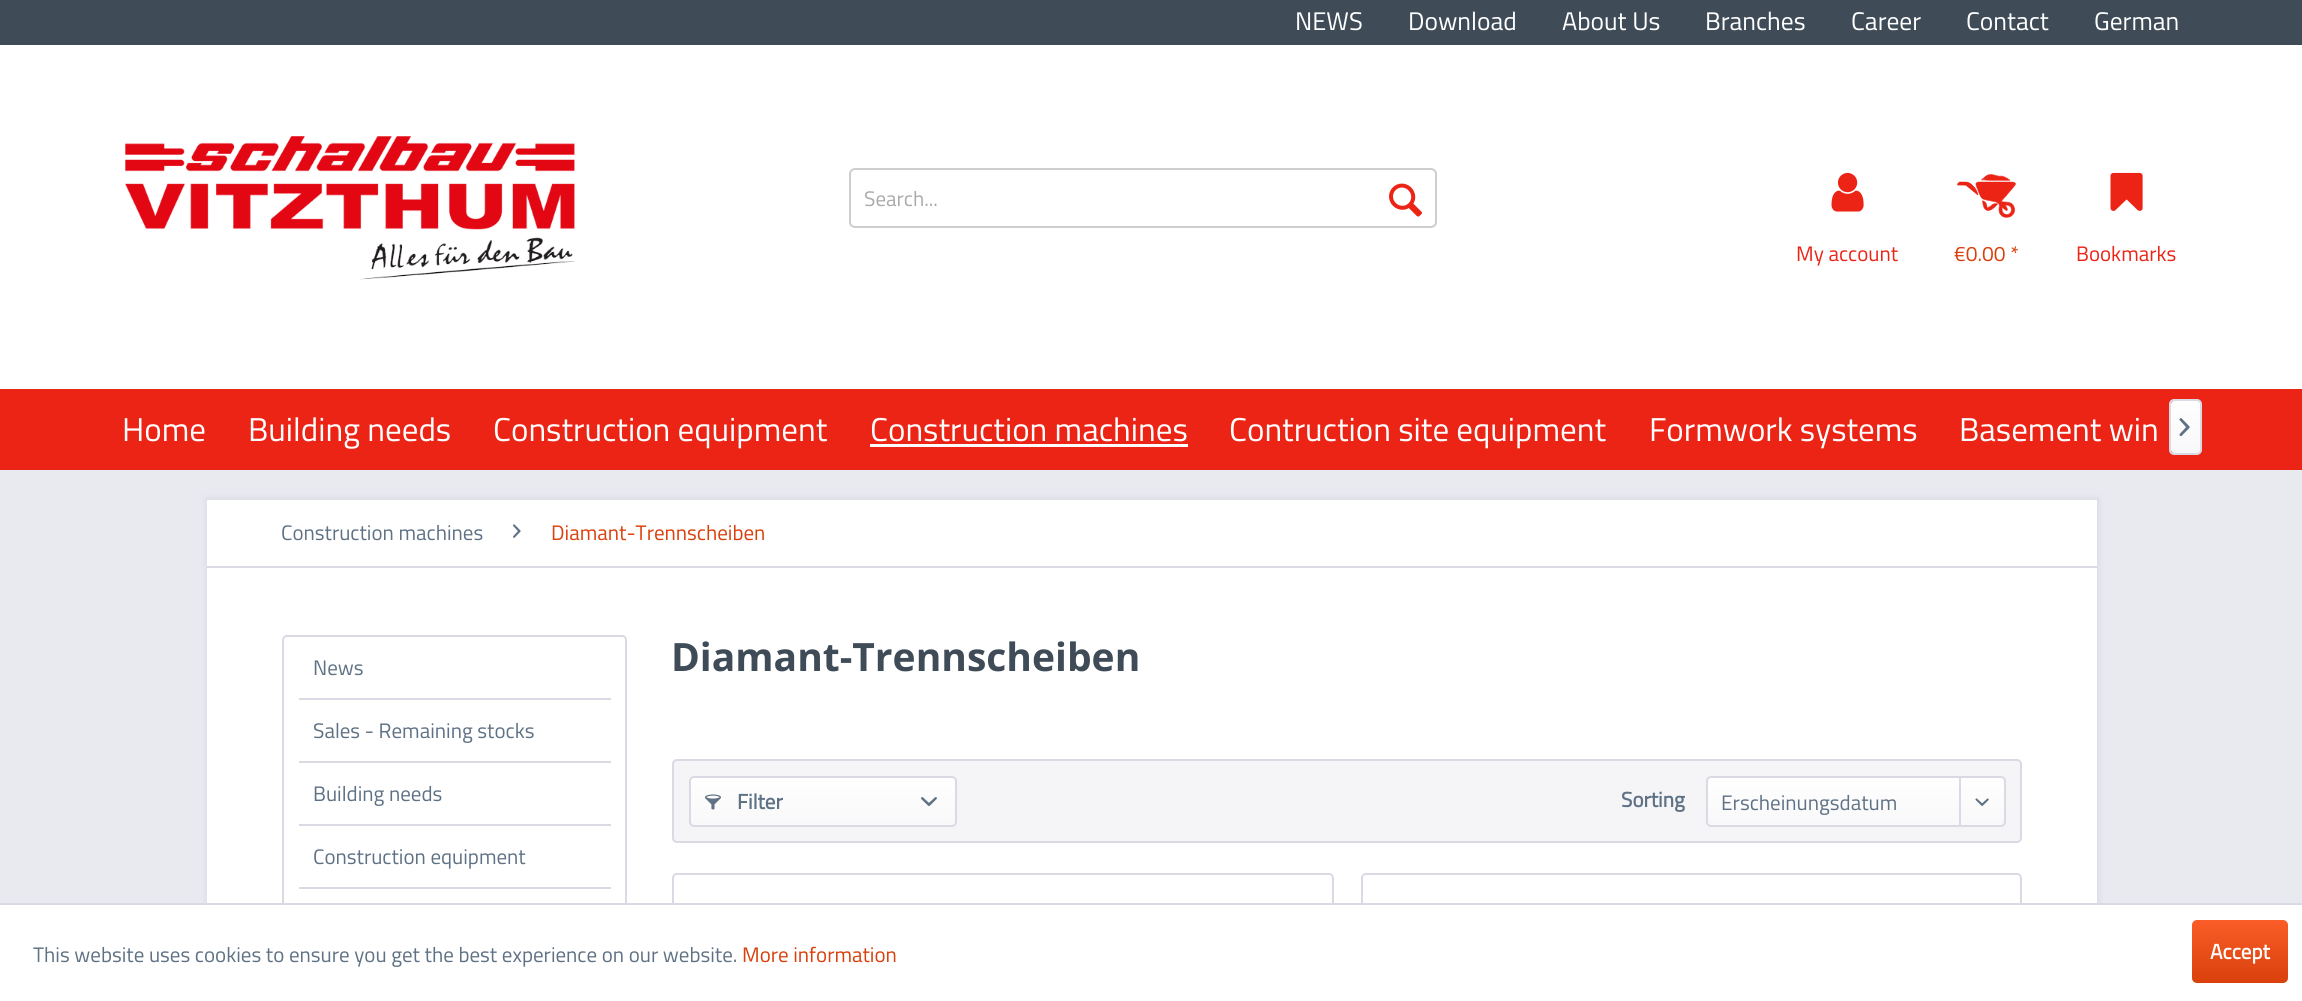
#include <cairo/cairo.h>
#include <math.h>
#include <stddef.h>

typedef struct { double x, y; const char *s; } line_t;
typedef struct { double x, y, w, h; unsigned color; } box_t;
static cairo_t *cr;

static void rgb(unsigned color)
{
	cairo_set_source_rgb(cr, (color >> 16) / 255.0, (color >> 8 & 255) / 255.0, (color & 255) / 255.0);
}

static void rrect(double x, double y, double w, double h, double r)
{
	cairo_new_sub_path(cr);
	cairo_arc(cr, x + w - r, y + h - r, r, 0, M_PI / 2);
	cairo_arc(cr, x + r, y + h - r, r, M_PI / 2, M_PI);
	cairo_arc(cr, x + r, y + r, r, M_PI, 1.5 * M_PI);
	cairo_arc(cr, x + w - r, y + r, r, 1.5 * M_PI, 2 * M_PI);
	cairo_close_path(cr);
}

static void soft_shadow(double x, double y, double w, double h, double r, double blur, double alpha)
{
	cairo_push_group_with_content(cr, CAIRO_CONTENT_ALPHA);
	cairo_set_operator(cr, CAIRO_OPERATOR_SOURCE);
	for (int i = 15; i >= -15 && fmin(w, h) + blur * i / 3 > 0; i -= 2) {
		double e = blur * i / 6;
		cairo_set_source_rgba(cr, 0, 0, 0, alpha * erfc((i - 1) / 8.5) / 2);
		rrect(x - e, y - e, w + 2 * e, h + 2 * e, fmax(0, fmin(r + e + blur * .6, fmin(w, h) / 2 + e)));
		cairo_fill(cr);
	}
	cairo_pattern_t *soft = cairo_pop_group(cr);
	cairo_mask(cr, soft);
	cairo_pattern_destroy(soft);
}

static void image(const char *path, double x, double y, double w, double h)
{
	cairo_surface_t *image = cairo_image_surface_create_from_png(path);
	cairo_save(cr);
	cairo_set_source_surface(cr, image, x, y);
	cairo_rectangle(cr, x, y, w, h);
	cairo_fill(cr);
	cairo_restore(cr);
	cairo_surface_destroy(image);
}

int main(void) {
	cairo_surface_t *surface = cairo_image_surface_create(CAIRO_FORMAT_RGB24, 2302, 1001);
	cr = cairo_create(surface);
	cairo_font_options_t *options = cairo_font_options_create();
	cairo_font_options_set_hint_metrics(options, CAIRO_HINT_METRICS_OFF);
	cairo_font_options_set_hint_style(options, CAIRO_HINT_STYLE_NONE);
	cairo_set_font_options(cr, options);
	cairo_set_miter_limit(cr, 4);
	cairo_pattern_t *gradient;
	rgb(0xe9e9f0);
	cairo_paint(cr);
	rgb(0xffffff);
	cairo_rectangle(cr, 0, 45, 2302, 344);
	cairo_fill(cr);
	rgb(0x3f4c58);
	cairo_rectangle(cr, 0, 0, 2302, 45);
	cairo_fill(cr);
	image("img/1.png", 125, 136, 450, 144);
	rrect(850, 169, 586, 58, 5);
	rgb(0xcecece);
	cairo_stroke(cr);
	image("img/2.png", 1389, 183, 33, 34);
	image("img/3.png", 1831, 172, 33, 40);
	image("img/4.png", 1957, 174, 59, 44);
	image("img/5.png", 2110, 172, 33, 39);
	rgb(0xeb2416);
	cairo_rectangle(cr, 0, 389, 2302, 81);
	cairo_fill(cr);
	rgb(0xffffff);
	cairo_rectangle(cr, 870, 444, 318, 3);
	cairo_fill(cr);
	gradient = cairo_pattern_create_linear(2186, 401, 2186, 453);
	cairo_pattern_add_color_stop_rgba(gradient, 0, 1, 1, 1, 1);
	cairo_pattern_add_color_stop_rgba(gradient, 1, 0.973, 0.973, 0.98, 1);
	cairo_set_source(cr, gradient);
	cairo_pattern_destroy(gradient);
	rrect(2171, 401, 30, 52, 3);
	cairo_fill(cr);
	rrect(2170, 400, 31, 54, 4);
	rgb(0xdadae5);
	cairo_stroke(cr);
	image("img/6.png", 2179, 418, 11, 19);
	rgb(0xdadae5);
	soft_shadow(206, 498, 1893, 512, 0, 3, 1);
	rgb(0xffffff);
	cairo_rectangle(cr, 207, 500, 1890, 403);
	cairo_fill(cr);
	rgb(0xdadae5);
	cairo_rectangle(cr, 207, 566, 1890, 2);
	cairo_fill(cr);
	image("img/7.png", 513, 524, 8, 14);
	rrect(283, 636, 343, 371, 4);
	cairo_stroke(cr);
	{
		static const box_t items[] = {
			{299, 698, 312, 2, 0xdadae5},
			{299, 761, 312, 2, 0xdadae5},
			{299, 824, 312, 2, 0xdadae5},
			{299, 887, 312, 2, 0xdadae5},
		};
		for (size_t i = 0; i < sizeof items / sizeof *items; i++) {
			rgb(items[i].color);
			cairo_rectangle(cr, items[i].x, items[i].y, items[i].w, items[i].h);
			cairo_fill(cr);
		}
	}
	rgb(0xf5f5f8);
	rrect(673, 760, 1348, 82, 4);
	cairo_fill_preserve(cr);
	rgb(0xdadae5);
	cairo_stroke(cr);
	gradient = cairo_pattern_create_linear(823, 777, 823, 825);
	cairo_pattern_add_color_stop_rgba(gradient, 0, 1, 1, 1, 1);
	cairo_pattern_add_color_stop_rgba(gradient, 1, 0.973, 0.973, 0.98, 1);
	cairo_set_source(cr, gradient);
	cairo_pattern_destroy(gradient);
	rrect(690, 777, 266, 48, 3);
	cairo_fill(cr);
	rrect(690, 777, 266, 49, 4);
	rgb(0xdadae5);
	cairo_stroke(cr);
	image("img/8.png", 705, 794, 16, 16);
	image("img/9.png", 921, 797, 16, 9);
	gradient = cairo_pattern_create_linear(1856, 777, 1856, 825);
	cairo_pattern_add_color_stop_rgba(gradient, 0, 1, 1, 1, 1);
	cairo_pattern_add_color_stop_rgba(gradient, 1, 0.973, 0.973, 0.98, 1);
	cairo_set_source(cr, gradient);
	cairo_pattern_destroy(gradient);
	rrect(1707, 777, 297, 48, 3);
	cairo_fill(cr);
	rrect(1707, 777, 298, 49, 4);
	rgb(0xdadae5);
	cairo_stroke(cr);
	cairo_rectangle(cr, 1959, 777, 2, 50);
	cairo_fill(cr);
	image("img/10.png", 1975, 798, 14, 8);
	rrect(673, 874, 660, 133, 4);
	cairo_stroke(cr);
	rrect(1362, 874, 659, 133, 4);
	cairo_stroke(cr);
	rgb(0xffffff);
	cairo_rectangle(cr, 0, 905, 2302, 96);
	cairo_fill(cr);
	rgb(0xdadae5);
	cairo_rectangle(cr, 0, 903, 2302, 2);
	cairo_fill(cr);
	gradient = cairo_pattern_create_linear(2240, 920, 2240, 983);
	cairo_pattern_add_color_stop_rgba(gradient, 0, 0.98, 0.365, 0.153, 1);
	cairo_pattern_add_color_stop_rgba(gradient, 1, 0.851, 0.251, 0.043, 1);
	cairo_set_source(cr, gradient);
	cairo_pattern_destroy(gradient);
	rrect(2192, 920, 96, 63, 5);
	cairo_fill(cr);
	cairo_select_font_face(cr, "Titillium Web", CAIRO_FONT_SLANT_NORMAL, CAIRO_FONT_WEIGHT_NORMAL);
	cairo_set_font_size(cr, 25.5);
	rgb(0xffffff);
	{
		static const line_t items[] = {
			{1295, 30, "NEWS"},
			{1408, 30, "Download"},
			{1562, 30, "About Us"},
			{1705, 30, "Branches"},
			{1851, 30, "Career"},
			{1966, 30, "Contact"},
			{2094, 30, "German"},
		};
		for (size_t i = 0; i < sizeof items / sizeof *items; i++) {
			cairo_move_to(cr, items[i].x, items[i].y);
			cairo_show_text(cr, items[i].s);
		}
	}
	cairo_set_font_size(cr, 21);
	rgb(0xaaaaaa);
	cairo_move_to(cr, 864, 206);
	cairo_show_text(cr, "Search...");
	rgb(0xeb2416);
	cairo_move_to(cr, 1796, 261);
	cairo_show_text(cr, "My account");
	rgb(0xd9400b);
	cairo_move_to(cr, 1954, 261);
	cairo_show_text(cr, "€0.00 *");
	rgb(0xeb2416);
	cairo_move_to(cr, 2076, 261);
	cairo_show_text(cr, "Bookmarks");
	cairo_set_font_size(cr, 33);
	rgb(0xffffff);
	{
		static const line_t items[] = {
			{122, 441, "Home"},
			{248, 441, "Building needs"},
			{493, 441, "Construction equipment"},
			{870, 441, "Construction machines"},
			{1229, 441, "Contruction site equipment"},
			{1649, 441, "Formwork systems"},
			{1959, 441, "Basement win"},
		};
		for (size_t i = 0; i < sizeof items / sizeof *items; i++) {
			cairo_move_to(cr, items[i].x, items[i].y);
			cairo_show_text(cr, items[i].s);
		}
	}
	cairo_set_font_size(cr, 21);
	rgb(0x5f7285);
	cairo_move_to(cr, 281, 540);
	cairo_show_text(cr, "Construction machines");
	rgb(0xd9400b);
	cairo_move_to(cr, 551, 540);
	cairo_show_text(cr, "Diamant-Trennscheiben");
	rgb(0x5f7285);
	{
		static const line_t items[] = {
			{313, 675, "News"},
			{313, 738, "Sales - Remaining stocks"},
			{313, 801, "Building needs"},
			{313, 864, "Construction equipment"},
		};
		for (size_t i = 0; i < sizeof items / sizeof *items; i++) {
			cairo_move_to(cr, items[i].x, items[i].y);
			cairo_show_text(cr, items[i].s);
		}
	}
	cairo_select_font_face(cr, "Open Sans", CAIRO_FONT_SLANT_NORMAL, CAIRO_FONT_WEIGHT_BOLD);
	cairo_set_font_size(cr, 39);
	rgb(0x3f4c58);
	cairo_move_to(cr, 671, 671);
	cairo_show_text(cr, "Diamant-Trennscheiben");
	cairo_select_font_face(cr, "Titillium Web", CAIRO_FONT_SLANT_NORMAL, CAIRO_FONT_WEIGHT_BOLD);
	cairo_set_font_size(cr, 21);
	rgb(0x5f7285);
	cairo_move_to(cr, 737, 809);
	cairo_show_text(cr, "Filter");
	cairo_move_to(cr, 1621, 807);
	cairo_show_text(cr, "Sorting");
	cairo_select_font_face(cr, "Titillium Web", CAIRO_FONT_SLANT_NORMAL, CAIRO_FONT_WEIGHT_NORMAL);
	cairo_move_to(cr, 1721, 810);
	cairo_show_text(cr, "Erscheinungsdatum");
	cairo_move_to(cr, 33, 962);
	cairo_show_text(cr, "This website uses cookies to ensure you get the best experience on our website.");
	rgb(0xd9400b);
	cairo_move_to(cr, 742, 962);
	cairo_show_text(cr, "More information");
	cairo_select_font_face(cr, "Titillium Web", CAIRO_FONT_SLANT_NORMAL, CAIRO_FONT_WEIGHT_BOLD);
	rgb(0xffffff);
	cairo_move_to(cr, 2210, 959);
	cairo_show_text(cr, "Accept");
	cairo_surface_write_to_png(surface, "page.png");
	cairo_font_options_destroy(options);
	cairo_destroy(cr);
	cairo_surface_destroy(surface);
	return 0;
}
